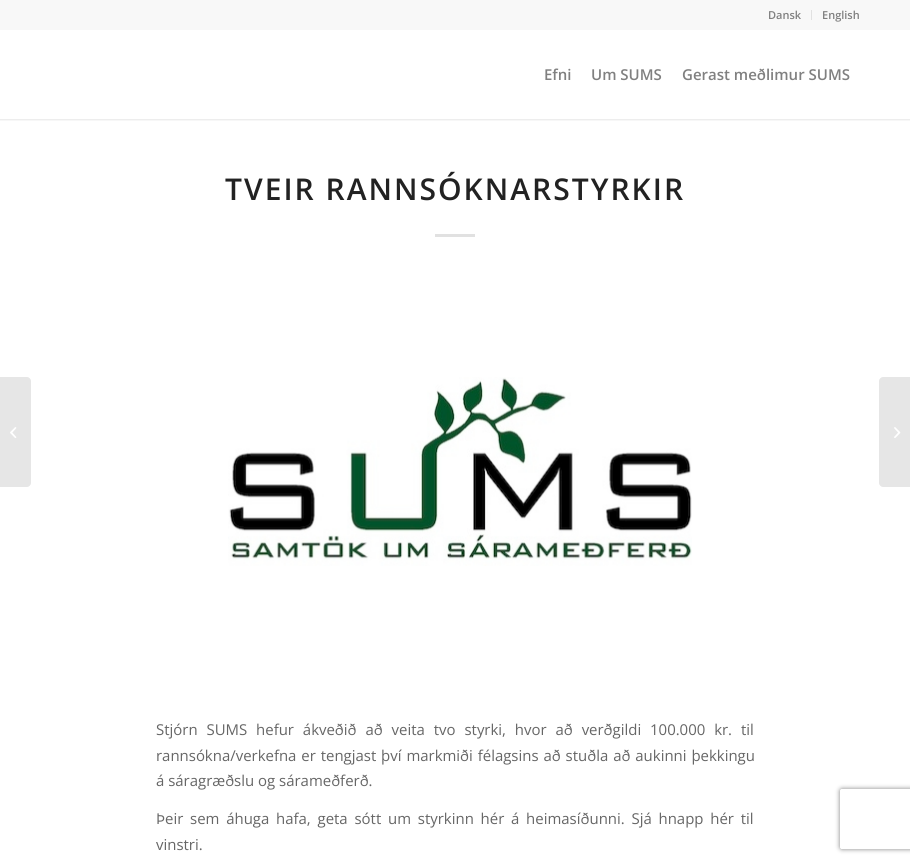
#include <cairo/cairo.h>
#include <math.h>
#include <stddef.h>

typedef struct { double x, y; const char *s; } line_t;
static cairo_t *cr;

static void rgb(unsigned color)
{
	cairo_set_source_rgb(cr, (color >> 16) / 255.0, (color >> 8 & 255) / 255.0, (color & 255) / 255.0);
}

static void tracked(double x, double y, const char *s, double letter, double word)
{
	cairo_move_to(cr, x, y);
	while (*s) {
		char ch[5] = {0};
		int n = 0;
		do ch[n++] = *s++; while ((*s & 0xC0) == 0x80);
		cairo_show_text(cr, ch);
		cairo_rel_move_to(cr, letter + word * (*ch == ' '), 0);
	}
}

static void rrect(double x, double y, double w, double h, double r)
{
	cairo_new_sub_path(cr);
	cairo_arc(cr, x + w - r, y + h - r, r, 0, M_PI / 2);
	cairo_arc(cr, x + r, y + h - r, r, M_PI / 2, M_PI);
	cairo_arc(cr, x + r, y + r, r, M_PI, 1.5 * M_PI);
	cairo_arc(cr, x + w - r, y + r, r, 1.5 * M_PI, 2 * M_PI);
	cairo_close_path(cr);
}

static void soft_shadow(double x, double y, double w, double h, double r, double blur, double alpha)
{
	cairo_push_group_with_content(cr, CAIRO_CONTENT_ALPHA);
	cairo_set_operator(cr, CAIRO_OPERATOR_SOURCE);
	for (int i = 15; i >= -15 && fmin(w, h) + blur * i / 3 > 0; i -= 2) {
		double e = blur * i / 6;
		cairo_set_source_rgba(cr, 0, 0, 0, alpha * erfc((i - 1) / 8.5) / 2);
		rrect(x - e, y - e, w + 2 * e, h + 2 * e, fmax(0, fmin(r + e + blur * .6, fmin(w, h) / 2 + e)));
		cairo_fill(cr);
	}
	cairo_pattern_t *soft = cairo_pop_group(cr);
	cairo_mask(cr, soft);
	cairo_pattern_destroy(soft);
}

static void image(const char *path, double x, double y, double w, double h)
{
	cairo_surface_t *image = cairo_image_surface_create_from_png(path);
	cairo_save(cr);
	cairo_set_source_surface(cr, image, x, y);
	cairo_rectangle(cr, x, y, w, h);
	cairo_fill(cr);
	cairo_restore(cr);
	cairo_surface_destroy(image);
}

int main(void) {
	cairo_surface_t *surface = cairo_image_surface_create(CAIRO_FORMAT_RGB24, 910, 863);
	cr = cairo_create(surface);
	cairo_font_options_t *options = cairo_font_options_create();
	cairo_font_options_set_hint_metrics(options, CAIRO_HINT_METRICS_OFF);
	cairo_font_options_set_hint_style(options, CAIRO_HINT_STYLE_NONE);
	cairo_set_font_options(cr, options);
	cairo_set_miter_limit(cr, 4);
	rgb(0xffffff);
	cairo_paint(cr);
	cairo_save(cr);
	cairo_rectangle(cr, 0, 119, 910, 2);
	cairo_clip(cr);
	rgb(0x000000);
	soft_shadow(-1, -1, 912, 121, 0, 1, 0.1);
	cairo_restore(cr);
	rgb(0xf8f8f8);
	cairo_rectangle(cr, 0, 0, 910, 30);
	cairo_fill(cr);
	rgb(0xe1e1e1);
	cairo_rectangle(cr, 811, 10, 1, 10);
	cairo_fill(cr);
	rgb(0xe6e6e6);
	cairo_new_path(cr);
	cairo_move_to(cr, 0, 377);
	cairo_line_to(cr, 27, 377);
	cairo_curve_to(cr, 29, 377, 31, 379, 31, 381);
	cairo_line_to(cr, 31, 483);
	cairo_curve_to(cr, 31, 485, 29, 487, 27, 487);
	cairo_line_to(cr, 0, 487);
	cairo_close_path(cr);
	cairo_fill(cr);
	image("img/1.png", 10, 427, 7, 11);
	rgb(0xe1e1e1);
	cairo_rectangle(cr, 435, 234, 40, 3);
	cairo_fill(cr);
	image("img/2.png", 228, 377, 464, 189);
	rgb(0xe6e6e6);
	cairo_new_path(cr);
	cairo_move_to(cr, 883, 377);
	cairo_line_to(cr, 910, 377);
	cairo_line_to(cr, 910, 487);
	cairo_line_to(cr, 883, 487);
	cairo_curve_to(cr, 881, 487, 879, 485, 879, 483);
	cairo_line_to(cr, 879, 381);
	cairo_curve_to(cr, 879, 379, 881, 377, 883, 377);
	cairo_close_path(cr);
	cairo_fill(cr);
	image("img/3.png", 894, 427, 7, 11);
	cairo_save(cr);
	cairo_set_fill_rule(cr, CAIRO_FILL_RULE_EVEN_ODD);
	cairo_new_path(cr);
	cairo_move_to(cr, 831, 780);
	cairo_line_to(cr, 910, 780);
	cairo_line_to(cr, 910, 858);
	cairo_line_to(cr, 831, 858);
	cairo_close_path(cr);
	cairo_move_to(cr, 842, 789);
	cairo_line_to(cr, 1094, 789);
	cairo_curve_to(cr, 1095, 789, 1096, 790, 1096, 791);
	cairo_line_to(cr, 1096, 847);
	cairo_curve_to(cr, 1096, 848, 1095, 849, 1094, 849);
	cairo_line_to(cr, 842, 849);
	cairo_curve_to(cr, 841, 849, 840, 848, 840, 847);
	cairo_line_to(cr, 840, 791);
	cairo_curve_to(cr, 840, 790, 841, 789, 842, 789);
	cairo_close_path(cr);
	cairo_clip(cr);
	rgb(0x808080);
	soft_shadow(840, 789, 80, 60, 2, 2.5, 1);
	cairo_restore(cr);
	cairo_select_font_face(cr, "Open Sans SemiBold", CAIRO_FONT_SLANT_NORMAL, CAIRO_FONT_WEIGHT_NORMAL);
	cairo_set_font_size(cr, 11);
	rgb(0x808080);
	cairo_move_to(cr, 768, 19);
	cairo_show_text(cr, "Dansk");
	cairo_move_to(cr, 822, 19);
	cairo_show_text(cr, "English");
	cairo_set_font_size(cr, 15);
	{
		static const line_t items[] = {
			{544, 80, "Efni"},
			{591, 80, "Um SUMS"},
			{682, 80, "Gerast meðlimur SUMS"},
		};
		for (size_t i = 0; i < sizeof items / sizeof *items; i++) {
			cairo_move_to(cr, items[i].x, items[i].y);
			cairo_show_text(cr, items[i].s);
		}
	}
	cairo_set_font_size(cr, 30);
	rgb(0x222222);
	tracked(225, 200, "TVEIR RANNSÓKNARSTYRKIR", 2, 0);
	cairo_select_font_face(cr, "Open Sans", CAIRO_FONT_SLANT_NORMAL, CAIRO_FONT_WEIGHT_NORMAL);
	cairo_set_font_size(cr, 14.95);
	rgb(0x666666);
	tracked(156, 735, "Stjórn SUMS hefur ákveðið að veita tvo styrki, hvor að verðgildi 100.000 kr. til", 0, 5);
	tracked(156, 761, "rannsókna/verkefna er tengjast því markmiði félagsins að stuðla að aukinni þekkingu", 0, 1);
	cairo_move_to(cr, 156, 786);
	cairo_show_text(cr, "á sáragræðslu og sárameðferð.");
	tracked(156, 824, "Þeir sem áhuga hafa, geta sótt um styrkinn hér á heimasíðunni. Sjá hnapp hér til", 0, 2.9);
	cairo_move_to(cr, 156, 850);
	cairo_show_text(cr, "vinstri.");
	cairo_surface_write_to_png(surface, "page.png");
	cairo_font_options_destroy(options);
	cairo_destroy(cr);
	cairo_surface_destroy(surface);
	return 0;
}
